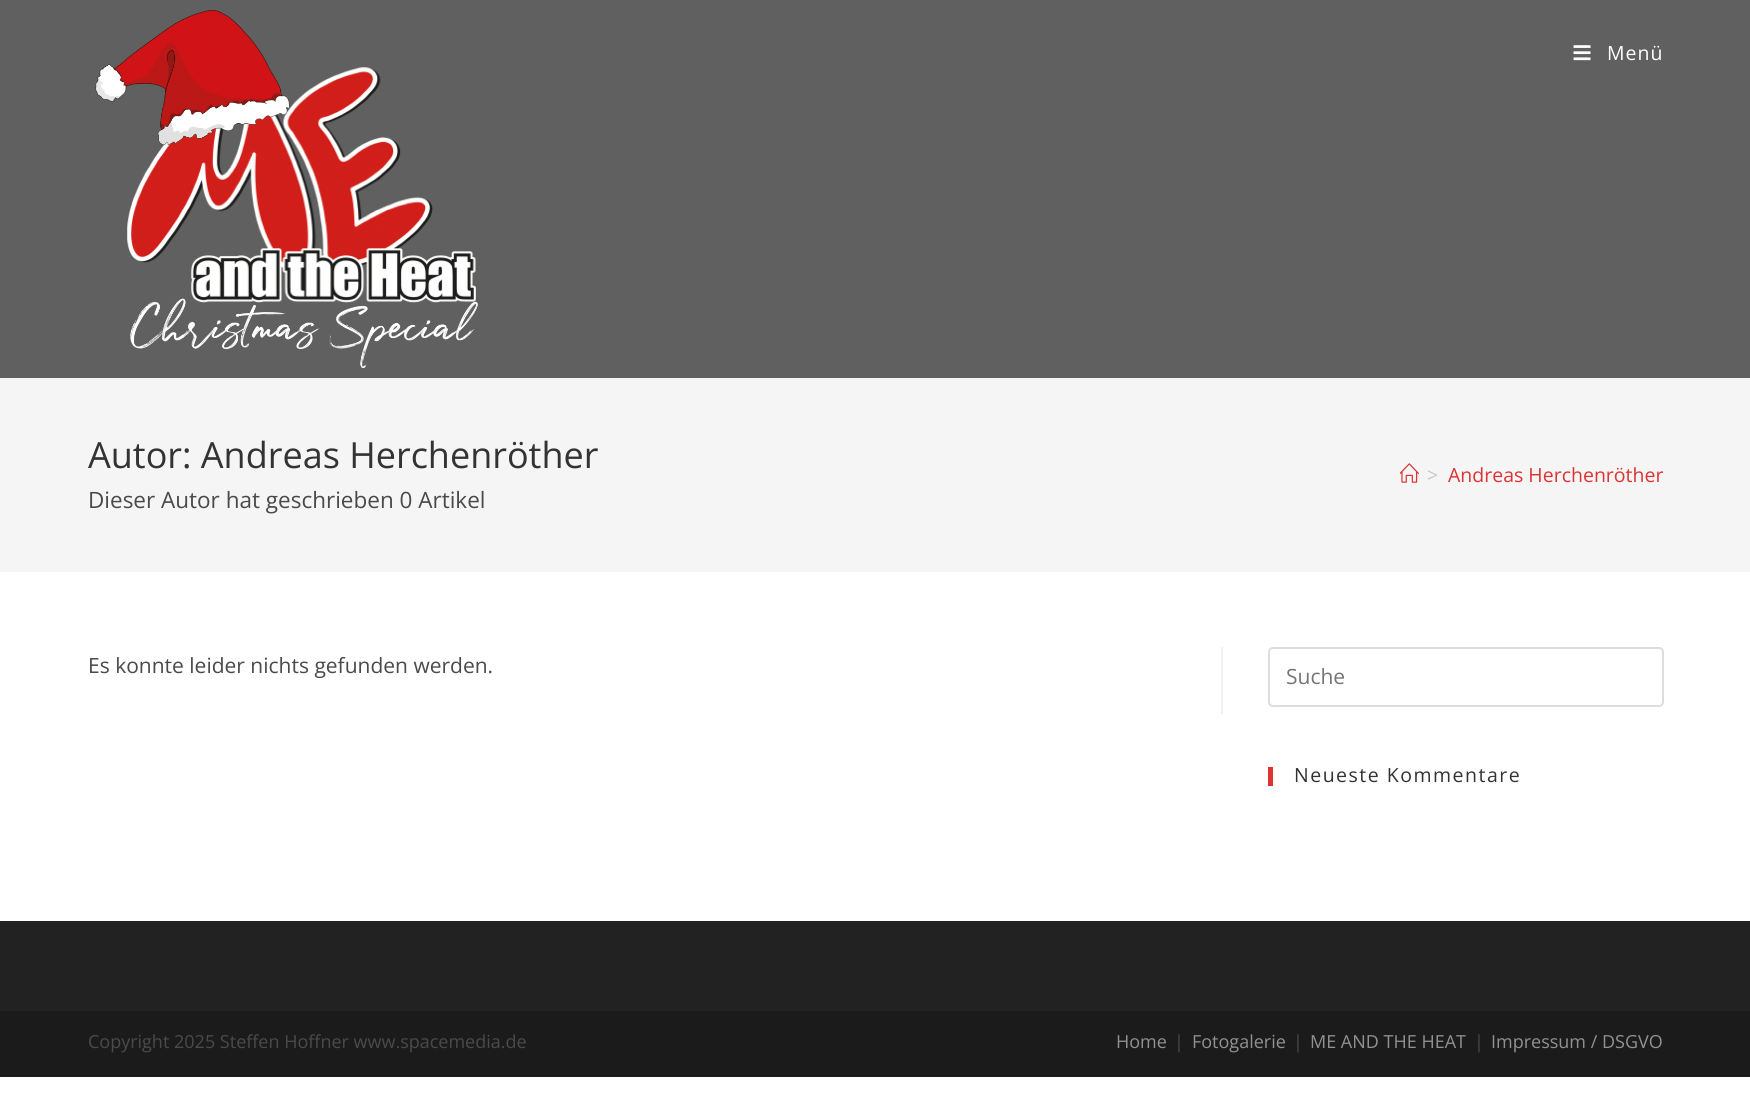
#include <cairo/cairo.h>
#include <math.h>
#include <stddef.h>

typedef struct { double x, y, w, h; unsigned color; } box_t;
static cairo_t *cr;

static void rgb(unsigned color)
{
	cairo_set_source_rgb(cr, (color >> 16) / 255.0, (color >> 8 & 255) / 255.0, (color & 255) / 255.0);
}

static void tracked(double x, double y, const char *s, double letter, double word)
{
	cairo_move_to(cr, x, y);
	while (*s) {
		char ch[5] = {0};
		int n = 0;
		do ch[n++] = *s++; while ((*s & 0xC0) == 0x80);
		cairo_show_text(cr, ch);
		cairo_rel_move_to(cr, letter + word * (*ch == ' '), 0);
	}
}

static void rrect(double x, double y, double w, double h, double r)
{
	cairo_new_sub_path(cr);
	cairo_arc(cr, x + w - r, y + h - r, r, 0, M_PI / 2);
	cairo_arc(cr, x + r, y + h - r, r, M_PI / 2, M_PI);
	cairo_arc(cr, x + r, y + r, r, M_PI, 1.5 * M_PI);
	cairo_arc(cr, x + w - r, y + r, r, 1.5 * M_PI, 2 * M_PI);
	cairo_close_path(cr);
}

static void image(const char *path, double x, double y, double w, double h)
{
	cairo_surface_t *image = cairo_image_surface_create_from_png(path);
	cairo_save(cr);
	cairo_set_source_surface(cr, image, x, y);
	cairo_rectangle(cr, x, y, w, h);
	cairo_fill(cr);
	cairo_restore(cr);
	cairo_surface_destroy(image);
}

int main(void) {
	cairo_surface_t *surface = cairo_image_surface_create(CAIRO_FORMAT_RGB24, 1750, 1107);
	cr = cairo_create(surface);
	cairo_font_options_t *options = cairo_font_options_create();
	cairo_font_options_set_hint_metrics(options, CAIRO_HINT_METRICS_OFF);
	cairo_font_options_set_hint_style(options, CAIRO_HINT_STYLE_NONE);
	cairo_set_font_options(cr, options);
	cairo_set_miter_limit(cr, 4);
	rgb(0xffffff);
	cairo_paint(cr);
	rgb(0x606060);
	cairo_rectangle(cr, 0, 0, 1750, 378);
	cairo_fill(cr);
	image("img/1.png", 95, 10, 383, 358);
	image("img/2.png", 1573, 45, 18, 16);
	rgb(0xf5f5f5);
	cairo_rectangle(cr, 0, 378, 1750, 194);
	cairo_fill(cr);
	image("img/3.png", 1400, 463, 19, 20);
	rgb(0xf1f1f1);
	cairo_rectangle(cr, 1221, 647, 2, 67);
	cairo_fill(cr);
	rrect(1269, 648, 394, 58, 4);
	rgb(0xdddddd);
	cairo_stroke(cr);
	{
		static const box_t items[] = {
			{1268, 767, 5, 19, 0xdd3333},
			{0, 921, 1750, 90, 0x222222},
			{0, 1011, 1750, 66, 0x1b1b1b},
		};
		for (size_t i = 0; i < sizeof items / sizeof *items; i++) {
			rgb(items[i].color);
			cairo_rectangle(cr, items[i].x, items[i].y, items[i].w, items[i].h);
			cairo_fill(cr);
		}
	}
	cairo_select_font_face(cr, "Open Sans", CAIRO_FONT_SLANT_NORMAL, CAIRO_FONT_WEIGHT_NORMAL);
	cairo_set_font_size(cr, 19.5);
	rgb(0xffffff);
	tracked(1607, 60, "Menü", 1, 0);
	cairo_set_font_size(cr, 36);
	rgb(0x333333);
	cairo_move_to(cr, 88, 468);
	cairo_show_text(cr, "Autor: Andreas Herchenröther");
	cairo_set_font_size(cr, 19.5);
	rgb(0xc6c6c6);
	cairo_move_to(cr, 1427, 482);
	cairo_show_text(cr, ">");
	rgb(0xdd3333);
	cairo_move_to(cr, 1448, 482);
	cairo_show_text(cr, "Andreas Herchenröther");
	cairo_set_font_size(cr, 22.5);
	rgb(0x4a4a4a);
	cairo_move_to(cr, 88, 508);
	cairo_show_text(cr, "Dieser Autor hat geschrieben 0 Artikel");
	cairo_set_font_size(cr, 21);
	cairo_move_to(cr, 88, 673);
	cairo_show_text(cr, "Es konnte leider nichts gefunden werden.");
	rgb(0x757575);
	cairo_move_to(cr, 1286, 684);
	cairo_show_text(cr, "Suche");
	cairo_set_font_size(cr, 19.5);
	rgb(0x333333);
	tracked(1294, 782, "Neueste Kommentare", 1.5, 0);
	cairo_set_font_size(cr, 18);
	rgb(0x4a4a4a);
	cairo_move_to(cr, 88, 1048);
	cairo_show_text(cr, "Copyright 2025 Steffen Hoffner www.spacemedia.de");
	rgb(0x919191);
	cairo_move_to(cr, 1116, 1048);
	cairo_show_text(cr, "Home");
	rgb(0x4a4a4a);
	cairo_move_to(cr, 1174, 1048);
	cairo_show_text(cr, "|");
	rgb(0x919191);
	cairo_move_to(cr, 1192, 1048);
	cairo_show_text(cr, "Fotogalerie");
	rgb(0x4a4a4a);
	cairo_move_to(cr, 1293, 1048);
	cairo_show_text(cr, "|");
	rgb(0x919191);
	cairo_move_to(cr, 1310, 1048);
	cairo_show_text(cr, "ME AND THE HEAT");
	rgb(0x4a4a4a);
	cairo_move_to(cr, 1474, 1048);
	cairo_show_text(cr, "|");
	rgb(0x919191);
	cairo_move_to(cr, 1491, 1048);
	cairo_show_text(cr, "Impressum / DSGVO");
	cairo_surface_write_to_png(surface, "page.png");
	cairo_font_options_destroy(options);
	cairo_destroy(cr);
	cairo_surface_destroy(surface);
	return 0;
}
